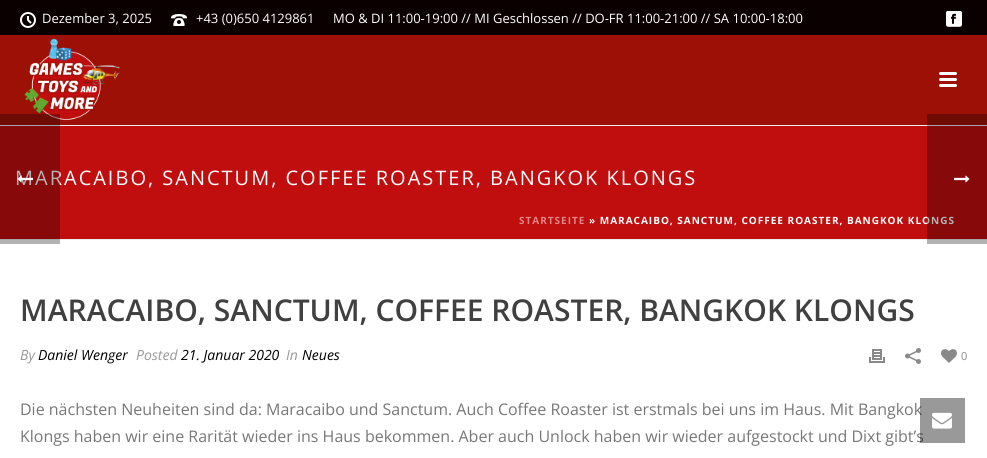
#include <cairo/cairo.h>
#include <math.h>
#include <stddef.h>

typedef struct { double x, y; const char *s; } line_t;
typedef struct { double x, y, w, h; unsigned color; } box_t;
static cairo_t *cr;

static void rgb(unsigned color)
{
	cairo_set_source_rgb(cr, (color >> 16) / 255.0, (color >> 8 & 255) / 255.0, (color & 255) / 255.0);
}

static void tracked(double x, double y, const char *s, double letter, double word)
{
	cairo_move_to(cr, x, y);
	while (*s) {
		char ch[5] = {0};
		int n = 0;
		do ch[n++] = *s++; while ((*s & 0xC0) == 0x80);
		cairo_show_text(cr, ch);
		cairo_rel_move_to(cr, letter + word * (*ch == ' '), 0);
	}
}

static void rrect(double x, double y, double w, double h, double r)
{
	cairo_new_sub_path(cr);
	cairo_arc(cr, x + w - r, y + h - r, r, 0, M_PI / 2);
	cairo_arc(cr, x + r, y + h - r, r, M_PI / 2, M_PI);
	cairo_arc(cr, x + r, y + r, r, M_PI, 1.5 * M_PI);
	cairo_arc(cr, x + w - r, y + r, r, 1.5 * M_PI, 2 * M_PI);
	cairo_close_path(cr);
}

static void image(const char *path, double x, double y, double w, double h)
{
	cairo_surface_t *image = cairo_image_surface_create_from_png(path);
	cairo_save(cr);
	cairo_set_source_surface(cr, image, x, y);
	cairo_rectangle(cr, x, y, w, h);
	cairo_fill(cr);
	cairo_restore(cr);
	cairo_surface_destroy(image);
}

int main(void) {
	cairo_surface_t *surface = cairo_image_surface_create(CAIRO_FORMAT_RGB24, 987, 458);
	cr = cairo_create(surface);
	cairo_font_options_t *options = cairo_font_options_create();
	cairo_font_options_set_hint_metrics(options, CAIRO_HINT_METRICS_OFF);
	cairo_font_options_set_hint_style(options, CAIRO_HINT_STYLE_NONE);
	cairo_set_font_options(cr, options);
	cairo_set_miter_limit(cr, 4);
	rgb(0xffffff);
	cairo_paint(cr);
	{
		static const box_t items[] = {
			{0, 126, 987, 113, 0xc00d0e},
			{0, 239, 987, 1, 0xededed},
			{0, 0, 987, 35, 0x0a0000},
		};
		for (size_t i = 0; i < sizeof items / sizeof *items; i++) {
			rgb(items[i].color);
			cairo_rectangle(cr, items[i].x, items[i].y, items[i].w, items[i].h);
			cairo_fill(cr);
		}
	}
	image("img/1.png", 20, 12, 16, 16);
	image("img/2.png", 171, 14, 16, 12);
	image("img/3.png", 946, 11, 16, 16);
	rgb(0xededed);
	cairo_rectangle(cr, 0, 125, 987, 1);
	cairo_fill(cr);
	rgb(0x9c1006);
	cairo_rectangle(cr, 0, 35, 987, 90);
	cairo_fill(cr);
	image("img/4.png", 24, 38, 96, 83);
	rgb(0xffffff);
	rrect(939, 72, 18, 3, 1.5);
	cairo_fill(cr);
	rrect(939, 78, 18, 3, 1.5);
	cairo_fill(cr);
	rrect(939, 84, 18, 3, 1.5);
	cairo_fill(cr);
	image("img/5.png", 869, 349, 16, 14);
	image("img/6.png", 905, 348, 16, 16);
	image("img/7.png", 941, 349, 16, 14);
	cairo_select_font_face(cr, "Open Sans", CAIRO_FONT_SLANT_NORMAL, CAIRO_FONT_WEIGHT_NORMAL);
	cairo_set_font_size(cr, 13);
	{
		static const line_t items[] = {
			{42, 23, "Dezember 3, 2025"},
			{196, 23, "+43 (0)650 4129861"},
			{333, 23, "MO & DI 11:00-19:00 // MI Geschlossen // DO-FR 11:00-21:00 // SA 10:00-18:00"},
		};
		for (size_t i = 0; i < sizeof items / sizeof *items; i++) {
			cairo_move_to(cr, items[i].x, items[i].y);
			cairo_show_text(cr, items[i].s);
		}
	}
	cairo_set_font_size(cr, 20);
	tracked(15, 185, "MARACAIBO, SANCTUM, COFFEE ROASTER, BANGKOK KLONGS", 2, 0);
	cairo_select_font_face(cr, "Open Sans", CAIRO_FONT_SLANT_NORMAL, CAIRO_FONT_WEIGHT_BOLD);
	cairo_set_font_size(cr, 10);
	rgb(0xe08687);
	tracked(519, 224, "STARTSEITE", 1, 0);
	rgb(0xffffff);
	tracked(589, 224, "» MARACAIBO, SANCTUM, COFFEE ROASTER, BANGKOK KLONGS", 1, 0);
	cairo_select_font_face(cr, "Open Sans SemiBold", CAIRO_FONT_SLANT_NORMAL, CAIRO_FONT_WEIGHT_NORMAL);
	cairo_set_font_size(cr, 30);
	rgb(0x404040);
	cairo_move_to(cr, 20, 321);
	cairo_show_text(cr, "MARACAIBO, SANCTUM, COFFEE ROASTER, BANGKOK KLONGS");
	cairo_select_font_face(cr, "Open Sans", CAIRO_FONT_SLANT_ITALIC, CAIRO_FONT_WEIGHT_NORMAL);
	cairo_set_font_size(cr, 14);
	rgb(0x999999);
	cairo_move_to(cr, 20, 360);
	cairo_show_text(cr, "By");
	rgb(0x000000);
	cairo_move_to(cr, 38, 360);
	cairo_show_text(cr, "Daniel Wenger");
	rgb(0x999999);
	cairo_move_to(cr, 136, 360);
	cairo_show_text(cr, "Posted");
	rgb(0x000000);
	cairo_move_to(cr, 181, 360);
	cairo_show_text(cr, "21. Januar 2020");
	rgb(0x999999);
	cairo_move_to(cr, 286, 360);
	cairo_show_text(cr, "In");
	rgb(0x000000);
	cairo_move_to(cr, 302, 360);
	cairo_show_text(cr, "Neues");
	cairo_select_font_face(cr, "Open Sans", CAIRO_FONT_SLANT_NORMAL, CAIRO_FONT_WEIGHT_NORMAL);
	cairo_set_font_size(cr, 11);
	rgb(0x898989);
	cairo_move_to(cr, 961, 360);
	cairo_show_text(cr, "0");
	cairo_set_font_size(cr, 16);
	rgb(0x777777);
	cairo_move_to(cr, 20, 415);
	cairo_show_text(cr, "Die nächsten Neuheiten sind da: Maracaibo und Sanctum. Auch Coffee Roaster ist erstmals bei uns im Haus. Mit Bangkok");
	cairo_move_to(cr, 20, 442);
	cairo_show_text(cr, "Klongs haben wir eine Rarität wieder ins Haus bekommen. Aber auch Unlock haben wir wieder aufgestockt und Dixt gibt’s");
	cairo_set_source_rgba(cr, 0, 0, 0, 0.3);
	cairo_rectangle(cr, 0, 114, 60, 130);
	cairo_fill(cr);
	image("img/8.png", 17, 175, 16, 8);
	cairo_rectangle(cr, 927, 114, 60, 130);
	cairo_fill(cr);
	image("img/9.png", 954, 175, 16, 8);
	cairo_set_source_rgba(cr, 0, 0, 0, 0.4);
	cairo_rectangle(cr, 920, 398, 45, 45);
	cairo_fill(cr);
	image("img/10.png", 932, 412, 20, 17);
	cairo_surface_write_to_png(surface, "page.png");
	cairo_font_options_destroy(options);
	cairo_destroy(cr);
	cairo_surface_destroy(surface);
	return 0;
}
